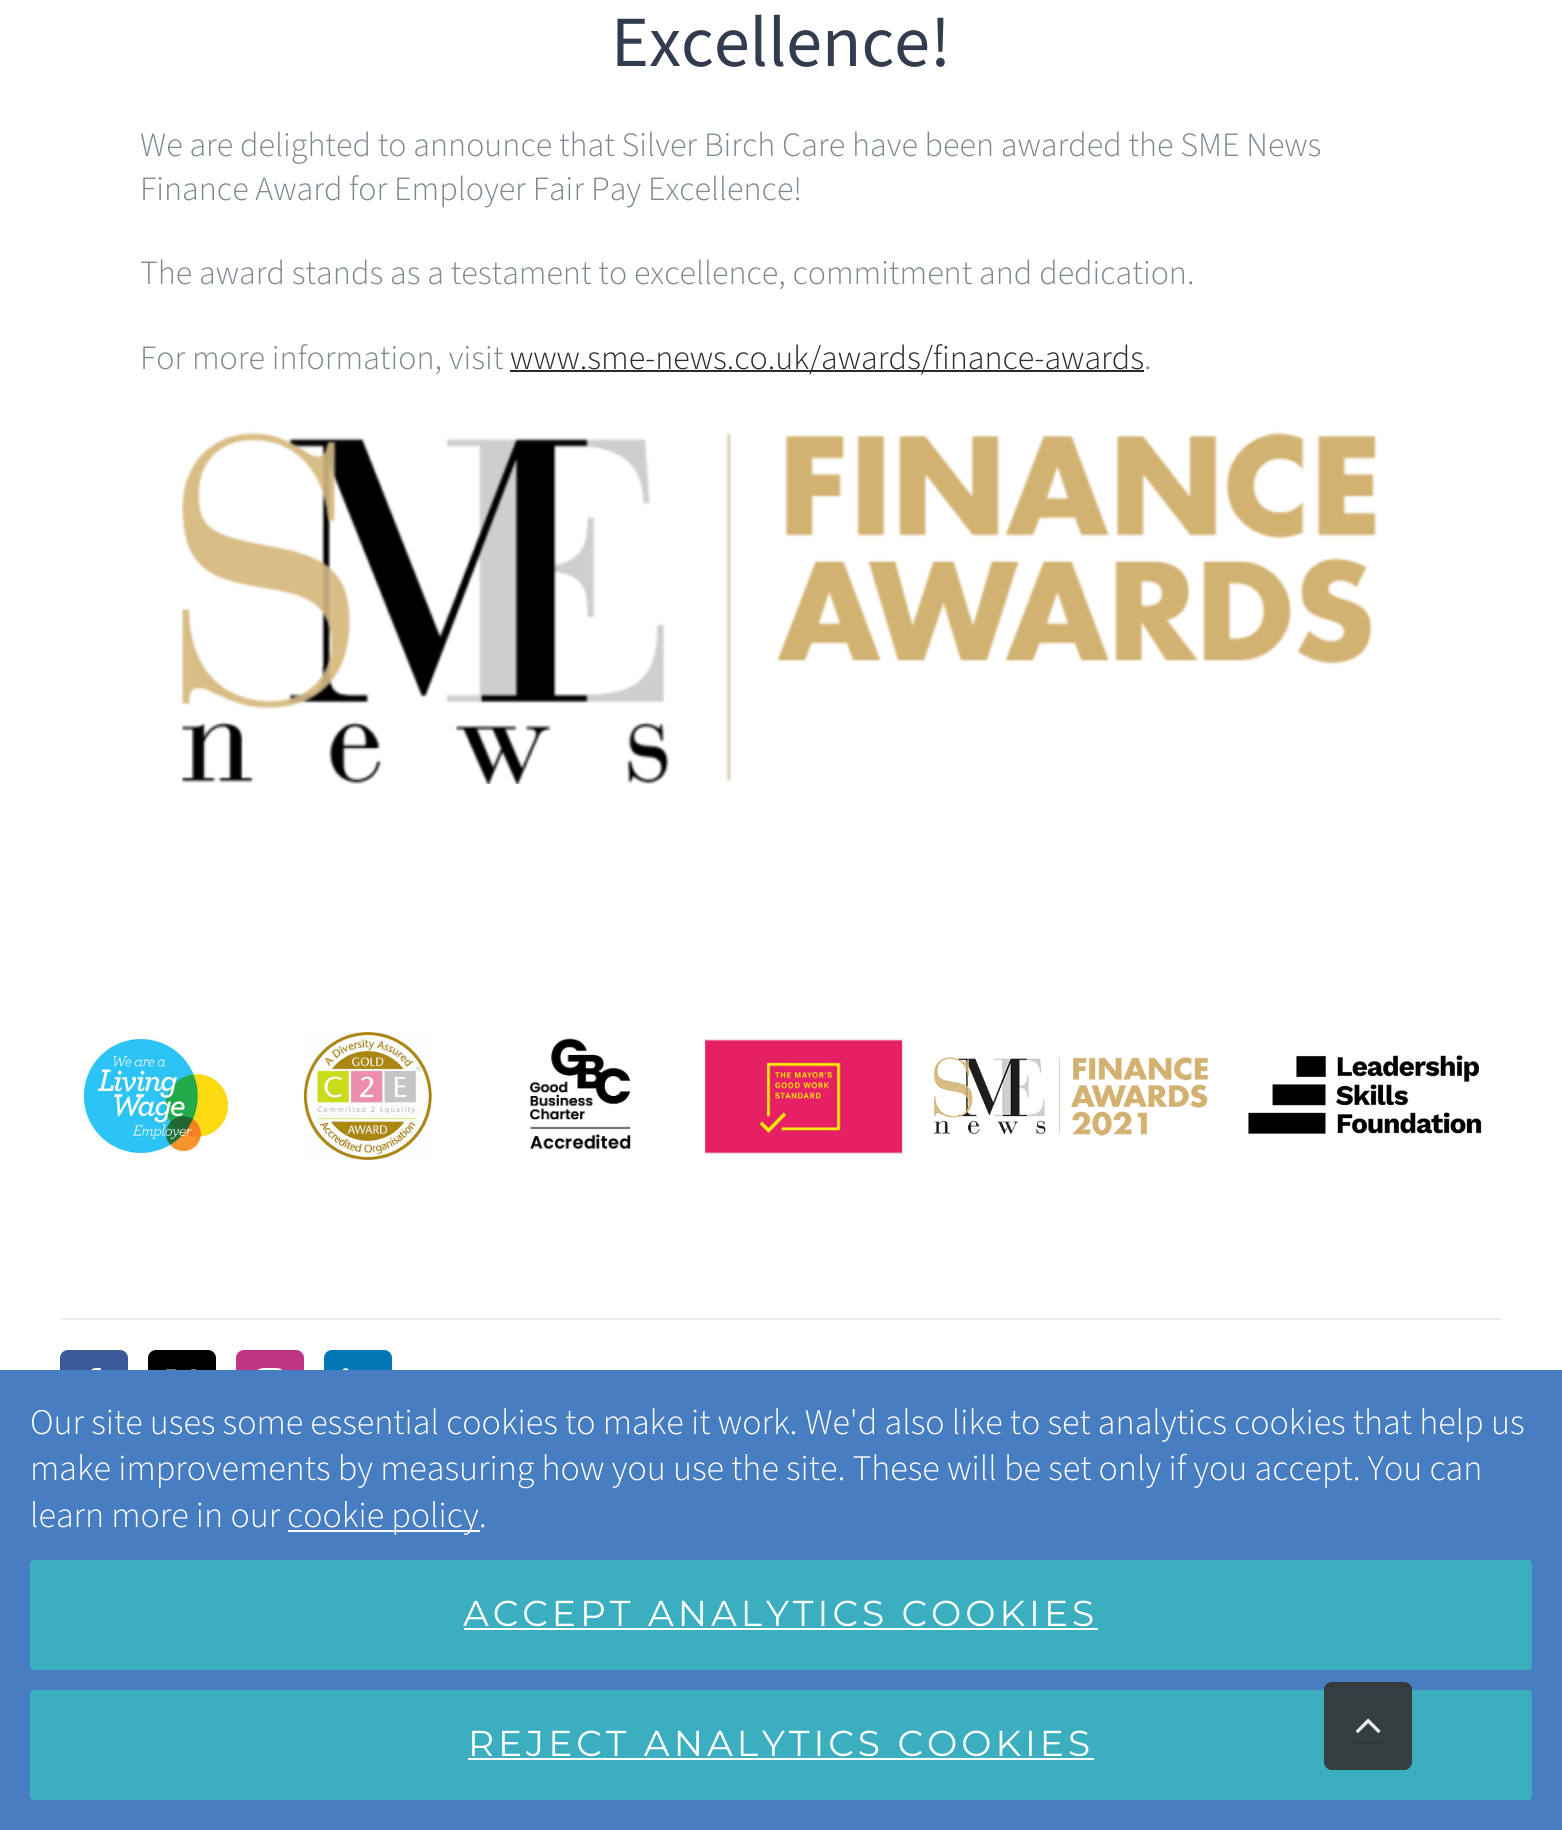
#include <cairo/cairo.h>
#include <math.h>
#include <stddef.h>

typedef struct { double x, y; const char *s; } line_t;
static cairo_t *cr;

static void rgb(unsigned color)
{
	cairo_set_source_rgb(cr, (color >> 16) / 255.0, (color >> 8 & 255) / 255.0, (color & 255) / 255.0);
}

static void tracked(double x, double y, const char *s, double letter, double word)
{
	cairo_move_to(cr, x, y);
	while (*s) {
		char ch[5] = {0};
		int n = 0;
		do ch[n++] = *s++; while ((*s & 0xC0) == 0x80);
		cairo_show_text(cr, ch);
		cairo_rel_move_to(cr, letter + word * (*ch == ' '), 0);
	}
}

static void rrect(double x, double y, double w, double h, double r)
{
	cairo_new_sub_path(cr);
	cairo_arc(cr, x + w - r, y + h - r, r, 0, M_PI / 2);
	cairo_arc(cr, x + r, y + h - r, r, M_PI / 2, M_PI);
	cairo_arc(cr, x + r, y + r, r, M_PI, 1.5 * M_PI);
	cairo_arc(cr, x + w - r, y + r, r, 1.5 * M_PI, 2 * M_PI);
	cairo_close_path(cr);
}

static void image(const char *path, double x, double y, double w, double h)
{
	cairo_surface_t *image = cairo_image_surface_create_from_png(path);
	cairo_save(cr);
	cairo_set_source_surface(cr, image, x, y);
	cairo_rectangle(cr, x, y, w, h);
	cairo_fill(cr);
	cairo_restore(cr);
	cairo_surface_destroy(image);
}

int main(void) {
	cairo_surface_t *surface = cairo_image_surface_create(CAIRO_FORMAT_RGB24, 1562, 1830);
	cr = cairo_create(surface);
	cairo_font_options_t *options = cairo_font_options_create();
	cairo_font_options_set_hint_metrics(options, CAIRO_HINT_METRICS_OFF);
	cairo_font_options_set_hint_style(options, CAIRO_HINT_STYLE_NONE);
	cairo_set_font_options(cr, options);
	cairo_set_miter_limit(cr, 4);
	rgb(0xffffff);
	cairo_paint(cr);
	rgb(0x2b2b2b);
	cairo_rectangle(cr, 510, 370, 634, 2);
	cairo_fill(cr);
	image("img/1.png", 182, 431, 1195, 353);
	image("img/2.png", 82, 1038, 148, 116);
	image("img/3.png", 303, 1032, 129, 128);
	image("img/4.png", 530, 1038, 101, 112);
	image("img/5.png", 703, 1037, 200, 118);
	image("img/6.png", 934, 1057, 274, 79);
	image("img/7.png", 1248, 1055, 234, 79);
	rgb(0xededed);
	cairo_rectangle(cr, 60, 1318, 1442, 2);
	cairo_fill(cr);
	rgb(0x3b5998);
	rrect(61, 1351, 66, 66, 7);
	cairo_fill_preserve(cr);
	cairo_stroke(cr);
	image("img/8.png", 91, 1368, 10, 2);
	rgb(0x000000);
	rrect(149, 1351, 66, 66, 7);
	cairo_fill_preserve(cr);
	cairo_stroke(cr);
	image("img/9.png", 166, 1369, 30, 1);
	rgb(0xc13584);
	rrect(237, 1351, 66, 66, 7);
	cairo_fill_preserve(cr);
	cairo_stroke(cr);
	image("img/10.png", 257, 1368, 26, 2);
	rgb(0x0077b5);
	rrect(325, 1351, 66, 66, 7);
	cairo_fill_preserve(cr);
	cairo_stroke(cr);
	image("img/11.png", 342, 1368, 7, 2);
	rgb(0x477dc1);
	cairo_rectangle(cr, 0, 1370, 1562, 460);
	cairo_fill(cr);
	rgb(0xffffff);
	cairo_rectangle(cr, 288, 1530, 192, 2);
	cairo_fill(cr);
	rgb(0x3bafbf);
	rrect(30, 1560, 1502, 110, 4);
	cairo_fill(cr);
	rgb(0xffffff);
	cairo_rectangle(cr, 464, 1628, 634, 2);
	cairo_fill(cr);
	rgb(0x3bafbf);
	rrect(30, 1690, 1502, 110, 4);
	cairo_fill(cr);
	rgb(0xffffff);
	cairo_rectangle(cr, 468, 1758, 626, 2);
	cairo_fill(cr);
	cairo_set_source_rgba(cr, 0.2, 0.2, 0.2, 0.9);
	rrect(1324, 1682, 88, 88, 8);
	cairo_fill(cr);
	image("img/12.png", 1356, 1718, 25, 15);
	rgb(0x2d383a);
	cairo_rectangle(cr, 1354, 1742, 28, 2);
	cairo_fill(cr);
	cairo_select_font_face(cr, "Source Sans 3", CAIRO_FONT_SLANT_NORMAL, CAIRO_FONT_WEIGHT_NORMAL);
	cairo_set_font_size(cr, 72);
	rgb(0x333c4e);
	cairo_move_to(cr, 611, 66);
	cairo_show_text(cr, "Excellence!");
	cairo_select_font_face(cr, "Source Sans 3 Light", CAIRO_FONT_SLANT_NORMAL, CAIRO_FONT_WEIGHT_NORMAL);
	cairo_set_font_size(cr, 34);
	rgb(0x7e8890);
	{
		static const line_t items[] = {
			{140, 156, "We are delighted to announce that Silver Birch Care have been awarded the SME News"},
			{140, 200, "Finance Award for Employer Fair Pay Excellence!"},
			{140, 284, "The award stands as a testament to excellence, commitment and dedication."},
			{140, 369, "For more information, visit"},
		};
		for (size_t i = 0; i < sizeof items / sizeof *items; i++) {
			cairo_move_to(cr, items[i].x, items[i].y);
			cairo_show_text(cr, items[i].s);
		}
	}
	rgb(0x2b2b2b);
	cairo_move_to(cr, 510, 369);
	cairo_show_text(cr, "www.sme-news.co.uk/awards/finance-awards");
	rgb(0x7e8890);
	cairo_move_to(cr, 1144, 369);
	cairo_show_text(cr, ".");
	cairo_set_font_size(cr, 36);
	rgb(0xffffff);
	{
		static const line_t items[] = {
			{30, 1434, "Our site uses some essential cookies to make it work. We'd also like to set analytics cookies that help us"},
			{30, 1480, "make improvements by measuring how you use the site. These will be set only if you accept. You can"},
			{30, 1527, "learn more in our"},
			{287, 1527, "cookie policy."},
		};
		for (size_t i = 0; i < sizeof items / sizeof *items; i++) {
			cairo_move_to(cr, items[i].x, items[i].y);
			cairo_show_text(cr, items[i].s);
		}
	}
	cairo_select_font_face(cr, "Montserrat Thin", CAIRO_FONT_SLANT_NORMAL, CAIRO_FONT_WEIGHT_NORMAL);
	tracked(463, 1626, "ACCEPT ANALYTICS COOKIES", 4, 0);
	tracked(468, 1756, "REJECT ANALYTICS COOKIES", 4, 0);
	cairo_surface_write_to_png(surface, "page.png");
	cairo_font_options_destroy(options);
	cairo_destroy(cr);
	cairo_surface_destroy(surface);
	return 0;
}
